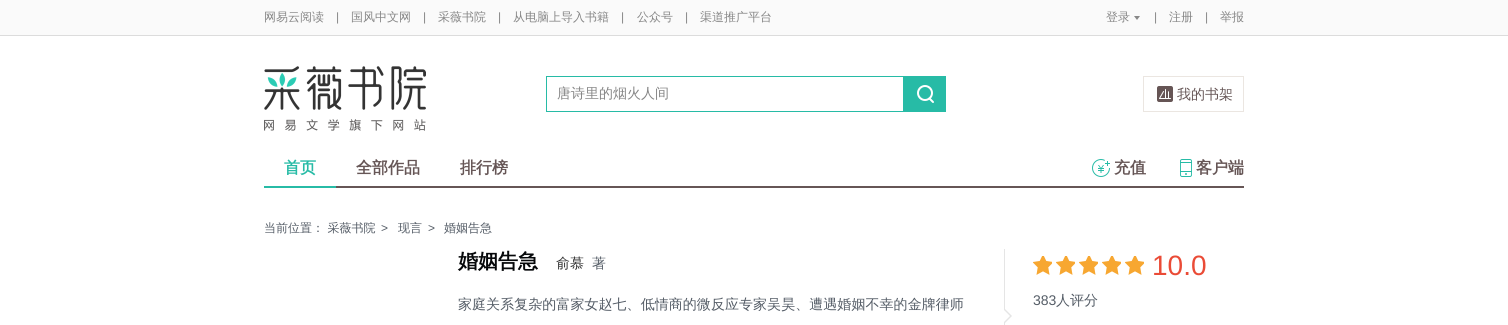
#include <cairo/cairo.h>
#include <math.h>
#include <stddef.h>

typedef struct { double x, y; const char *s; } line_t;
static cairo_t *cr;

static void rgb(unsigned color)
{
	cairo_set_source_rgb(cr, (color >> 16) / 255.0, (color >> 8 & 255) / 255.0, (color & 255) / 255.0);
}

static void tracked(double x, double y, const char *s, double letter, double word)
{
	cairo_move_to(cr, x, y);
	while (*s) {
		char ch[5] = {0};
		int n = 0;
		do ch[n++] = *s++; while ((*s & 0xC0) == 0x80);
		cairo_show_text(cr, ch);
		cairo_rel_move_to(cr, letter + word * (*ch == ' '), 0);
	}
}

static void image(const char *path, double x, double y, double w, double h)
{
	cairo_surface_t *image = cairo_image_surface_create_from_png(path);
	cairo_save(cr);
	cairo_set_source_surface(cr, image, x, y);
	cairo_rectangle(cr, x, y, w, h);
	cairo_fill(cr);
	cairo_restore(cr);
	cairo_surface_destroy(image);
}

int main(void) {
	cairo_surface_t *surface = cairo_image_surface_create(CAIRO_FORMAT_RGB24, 1508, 325);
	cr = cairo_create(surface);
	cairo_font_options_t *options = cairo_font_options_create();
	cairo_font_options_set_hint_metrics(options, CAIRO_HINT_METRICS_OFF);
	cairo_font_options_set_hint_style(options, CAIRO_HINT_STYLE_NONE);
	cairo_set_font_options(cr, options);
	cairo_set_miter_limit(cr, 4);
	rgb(0xffffff);
	cairo_paint(cr);
	rgb(0xfafafa);
	cairo_rectangle(cr, 0, 0, 1508, 35);
	cairo_fill(cr);
	rgb(0xdcdcdc);
	cairo_rectangle(cr, 0, 35, 1508, 1);
	cairo_fill(cr);
	image("img/1.png", 1134, 16, 6, 4);
	image("img/2.png", 264, 66, 162, 65);
	cairo_rectangle(cr, 546.5, 76.5, 357, 35);
	rgb(0x27bba6);
	cairo_set_line_width(cr, 1);
	cairo_stroke(cr);
	cairo_rectangle(cr, 904, 76, 42, 36);
	cairo_fill(cr);
	image("img/3.png", 917, 85, 17, 18);
	image("img/4.png", 1157, 86, 16, 16);
	cairo_rectangle(cr, 1143.5, 76.5, 100, 35);
	rgb(0xebe6e1);
	cairo_stroke(cr);
	rgb(0x665656);
	cairo_rectangle(cr, 336, 186, 908, 2);
	cairo_fill(cr);
	rgb(0x27bba6);
	cairo_rectangle(cr, 264, 186, 72, 2);
	cairo_fill(cr);
	image("img/5.png", 1092, 159, 18, 18);
	image("img/6.png", 1180, 159, 12, 18);
	rgb(0xe5e5e5);
	cairo_rectangle(cr, 1004, 249, 1, 76);
	cairo_fill(cr);
	image("img/7.png", 1033, 256, 19, 19);
	image("img/7.png", 1056, 256, 19, 19);
	image("img/7.png", 1079, 256, 19, 19);
	image("img/7.png", 1102, 256, 19, 19);
	image("img/7.png", 1125, 256, 19, 19);
	cairo_new_path(cr);
	cairo_move_to(cr, 1005, 323);
	cairo_line_to(cr, 1005, 309);
	cairo_line_to(cr, 1012, 316);
	cairo_close_path(cr);
	cairo_fill(cr);
	rgb(0xffffff);
	cairo_new_path(cr);
	cairo_move_to(cr, 1004, 322);
	cairo_line_to(cr, 1004, 310);
	cairo_line_to(cr, 1010, 316);
	cairo_close_path(cr);
	cairo_fill(cr);
	cairo_select_font_face(cr, "WenQuanYi Zen Hei Medium", CAIRO_FONT_SLANT_NORMAL, CAIRO_FONT_WEIGHT_NORMAL);
	cairo_set_font_size(cr, 12);
	rgb(0x868686);
	cairo_move_to(cr, 264, 21);
	cairo_show_text(cr, "网易云阅读");
	cairo_select_font_face(cr, "Liberation Sans", CAIRO_FONT_SLANT_NORMAL, CAIRO_FONT_WEIGHT_NORMAL);
	cairo_move_to(cr, 336, 21);
	cairo_show_text(cr, "|");
	cairo_select_font_face(cr, "WenQuanYi Zen Hei Medium", CAIRO_FONT_SLANT_NORMAL, CAIRO_FONT_WEIGHT_NORMAL);
	cairo_move_to(cr, 351, 21);
	cairo_show_text(cr, "国风中文网");
	cairo_select_font_face(cr, "Liberation Sans", CAIRO_FONT_SLANT_NORMAL, CAIRO_FONT_WEIGHT_NORMAL);
	cairo_move_to(cr, 423, 21);
	cairo_show_text(cr, "|");
	cairo_select_font_face(cr, "WenQuanYi Zen Hei Medium", CAIRO_FONT_SLANT_NORMAL, CAIRO_FONT_WEIGHT_NORMAL);
	cairo_move_to(cr, 438, 21);
	cairo_show_text(cr, "采薇书院");
	cairo_select_font_face(cr, "Liberation Sans", CAIRO_FONT_SLANT_NORMAL, CAIRO_FONT_WEIGHT_NORMAL);
	cairo_move_to(cr, 498, 21);
	cairo_show_text(cr, "|");
	cairo_select_font_face(cr, "WenQuanYi Zen Hei Medium", CAIRO_FONT_SLANT_NORMAL, CAIRO_FONT_WEIGHT_NORMAL);
	cairo_move_to(cr, 513, 21);
	cairo_show_text(cr, "从电脑上导入书籍");
	cairo_select_font_face(cr, "Liberation Sans", CAIRO_FONT_SLANT_NORMAL, CAIRO_FONT_WEIGHT_NORMAL);
	cairo_move_to(cr, 621, 21);
	cairo_show_text(cr, "|");
	cairo_select_font_face(cr, "WenQuanYi Zen Hei Medium", CAIRO_FONT_SLANT_NORMAL, CAIRO_FONT_WEIGHT_NORMAL);
	cairo_move_to(cr, 637, 21);
	cairo_show_text(cr, "公众号");
	cairo_select_font_face(cr, "Liberation Sans", CAIRO_FONT_SLANT_NORMAL, CAIRO_FONT_WEIGHT_NORMAL);
	cairo_move_to(cr, 685, 21);
	cairo_show_text(cr, "|");
	cairo_select_font_face(cr, "WenQuanYi Zen Hei Medium", CAIRO_FONT_SLANT_NORMAL, CAIRO_FONT_WEIGHT_NORMAL);
	cairo_move_to(cr, 700, 21);
	cairo_show_text(cr, "渠道推广平台");
	cairo_move_to(cr, 1106, 21);
	cairo_show_text(cr, "登录");
	cairo_select_font_face(cr, "Liberation Sans", CAIRO_FONT_SLANT_NORMAL, CAIRO_FONT_WEIGHT_NORMAL);
	cairo_move_to(cr, 1154, 21);
	cairo_show_text(cr, "|");
	cairo_select_font_face(cr, "WenQuanYi Zen Hei Medium", CAIRO_FONT_SLANT_NORMAL, CAIRO_FONT_WEIGHT_NORMAL);
	cairo_move_to(cr, 1169, 21);
	cairo_show_text(cr, "注册");
	cairo_select_font_face(cr, "Liberation Sans", CAIRO_FONT_SLANT_NORMAL, CAIRO_FONT_WEIGHT_NORMAL);
	cairo_move_to(cr, 1205, 21);
	cairo_show_text(cr, "|");
	cairo_select_font_face(cr, "WenQuanYi Zen Hei Medium", CAIRO_FONT_SLANT_NORMAL, CAIRO_FONT_WEIGHT_NORMAL);
	cairo_move_to(cr, 1220, 21);
	cairo_show_text(cr, "举报");
	cairo_set_font_size(cr, 14);
	cairo_move_to(cr, 557, 98);
	cairo_show_text(cr, "唐诗里的烟火人间");
	rgb(0x665656);
	cairo_move_to(cr, 1177, 99);
	cairo_show_text(cr, "我的书架");
	cairo_select_font_face(cr, "WenQuanYi Zen Hei", CAIRO_FONT_SLANT_NORMAL, CAIRO_FONT_WEIGHT_BOLD);
	cairo_set_font_size(cr, 16);
	rgb(0x27bba6);
	cairo_move_to(cr, 284, 173);
	cairo_show_text(cr, "首页");
	rgb(0x665656);
	{
		static const line_t items[] = {
			{356, 173, "全部作品"},
			{460, 173, "排行榜"},
			{1114, 173, "充值"},
			{1196, 173, "客户端"},
		};
		for (size_t i = 0; i < sizeof items / sizeof *items; i++) {
			cairo_move_to(cr, items[i].x, items[i].y);
			cairo_show_text(cr, items[i].s);
		}
	}
	cairo_select_font_face(cr, "WenQuanYi Zen Hei Medium", CAIRO_FONT_SLANT_NORMAL, CAIRO_FONT_WEIGHT_NORMAL);
	cairo_set_font_size(cr, 12);
	rgb(0x545c66);
	cairo_move_to(cr, 264, 232);
	cairo_show_text(cr, "当前位置： 采薇书院");
	cairo_select_font_face(cr, "Liberation Sans", CAIRO_FONT_SLANT_NORMAL, CAIRO_FONT_WEIGHT_NORMAL);
	cairo_move_to(cr, 381, 232);
	cairo_show_text(cr, ">");
	cairo_select_font_face(cr, "WenQuanYi Zen Hei Medium", CAIRO_FONT_SLANT_NORMAL, CAIRO_FONT_WEIGHT_NORMAL);
	cairo_move_to(cr, 398, 232);
	cairo_show_text(cr, "现言");
	cairo_select_font_face(cr, "Liberation Sans", CAIRO_FONT_SLANT_NORMAL, CAIRO_FONT_WEIGHT_NORMAL);
	cairo_move_to(cr, 428, 232);
	cairo_show_text(cr, ">");
	cairo_select_font_face(cr, "WenQuanYi Zen Hei Medium", CAIRO_FONT_SLANT_NORMAL, CAIRO_FONT_WEIGHT_NORMAL);
	cairo_move_to(cr, 444, 232);
	cairo_show_text(cr, "婚姻告急");
	cairo_select_font_face(cr, "WenQuanYi Zen Hei", CAIRO_FONT_SLANT_NORMAL, CAIRO_FONT_WEIGHT_BOLD);
	cairo_set_font_size(cr, 20);
	rgb(0x06080a);
	cairo_move_to(cr, 458, 268);
	cairo_show_text(cr, "婚姻告急");
	cairo_select_font_face(cr, "WenQuanYi Zen Hei Medium", CAIRO_FONT_SLANT_NORMAL, CAIRO_FONT_WEIGHT_NORMAL);
	cairo_set_font_size(cr, 14);
	rgb(0x333333);
	cairo_move_to(cr, 556, 268);
	cairo_show_text(cr, "俞慕");
	rgb(0x545c66);
	cairo_move_to(cr, 592, 268);
	cairo_show_text(cr, "著");
	tracked(458, 309, "家庭关系复杂的富家女赵七、低情商的微反应专家吴昊、遭遇婚姻不幸的金牌律师", 0.05, 0);
	cairo_select_font_face(cr, "Liberation Sans", CAIRO_FONT_SLANT_NORMAL, CAIRO_FONT_WEIGHT_NORMAL);
	cairo_set_font_size(cr, 28);
	rgb(0xea4b36);
	cairo_move_to(cr, 1152, 275);
	cairo_show_text(cr, "10.0");
	cairo_set_font_size(cr, 14);
	rgb(0x545c66);
	cairo_move_to(cr, 1033, 305);
	cairo_show_text(cr, "383");
	cairo_select_font_face(cr, "WenQuanYi Zen Hei Medium", CAIRO_FONT_SLANT_NORMAL, CAIRO_FONT_WEIGHT_NORMAL);
	cairo_move_to(cr, 1056, 305);
	cairo_show_text(cr, "人评分");
	cairo_surface_write_to_png(surface, "page.png");
	cairo_font_options_destroy(options);
	cairo_destroy(cr);
	cairo_surface_destroy(surface);
	return 0;
}
